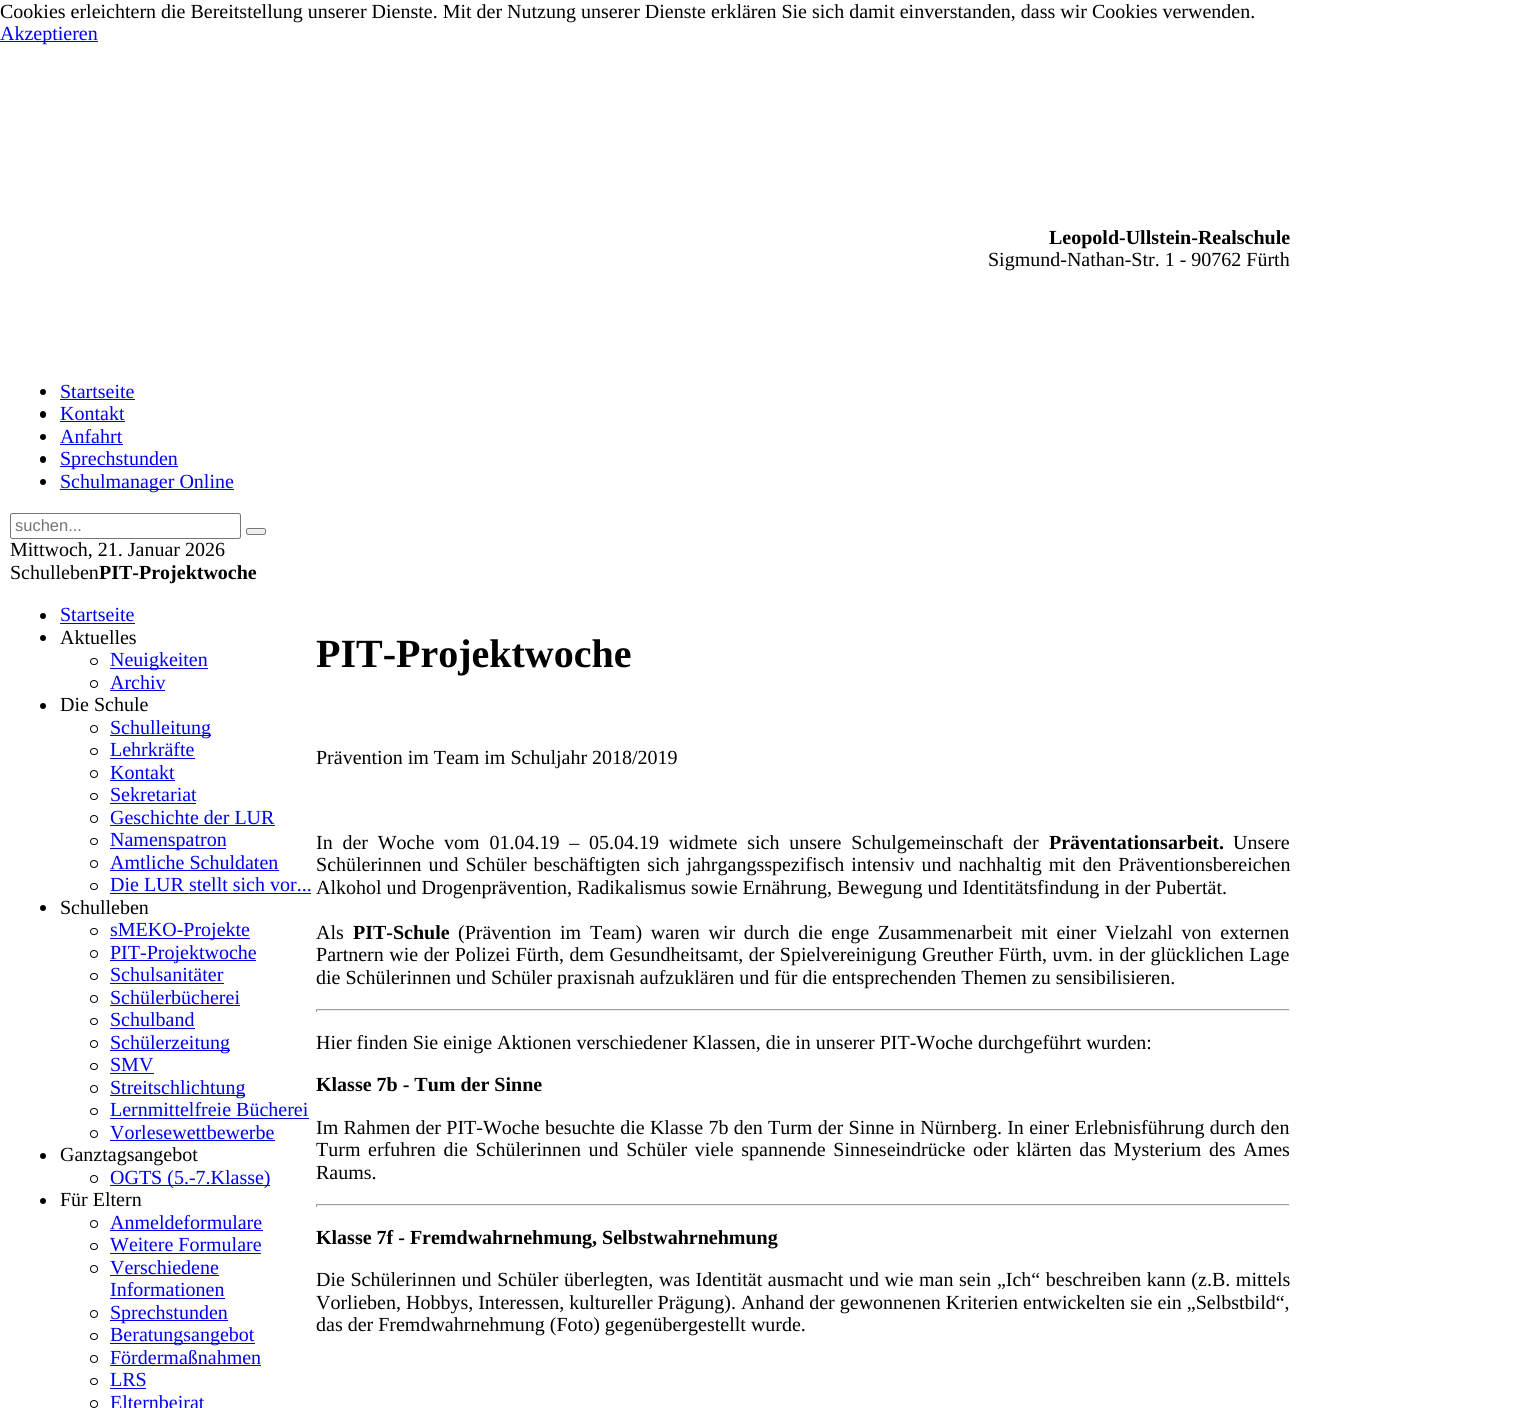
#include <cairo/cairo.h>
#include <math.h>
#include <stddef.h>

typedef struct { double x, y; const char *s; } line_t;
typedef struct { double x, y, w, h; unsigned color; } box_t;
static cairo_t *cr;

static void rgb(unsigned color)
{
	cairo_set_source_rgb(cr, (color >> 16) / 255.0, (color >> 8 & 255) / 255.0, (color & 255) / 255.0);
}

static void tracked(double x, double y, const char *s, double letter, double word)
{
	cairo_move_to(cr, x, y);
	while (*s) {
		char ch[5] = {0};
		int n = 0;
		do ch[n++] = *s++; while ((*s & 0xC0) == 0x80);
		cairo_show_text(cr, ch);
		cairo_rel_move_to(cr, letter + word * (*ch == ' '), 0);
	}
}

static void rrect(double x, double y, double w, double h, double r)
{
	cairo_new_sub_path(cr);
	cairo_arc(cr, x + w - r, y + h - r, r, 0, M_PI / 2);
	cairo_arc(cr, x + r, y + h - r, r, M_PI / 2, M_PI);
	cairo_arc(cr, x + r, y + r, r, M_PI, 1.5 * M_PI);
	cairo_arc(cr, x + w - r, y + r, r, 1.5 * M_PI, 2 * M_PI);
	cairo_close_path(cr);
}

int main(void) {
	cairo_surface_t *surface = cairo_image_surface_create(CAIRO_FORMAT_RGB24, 1538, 1408);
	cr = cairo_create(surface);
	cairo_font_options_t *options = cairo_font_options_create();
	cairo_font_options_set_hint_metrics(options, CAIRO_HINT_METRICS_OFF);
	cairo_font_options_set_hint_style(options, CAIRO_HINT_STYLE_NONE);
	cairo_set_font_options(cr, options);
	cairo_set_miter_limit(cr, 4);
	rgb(0xffffff);
	cairo_paint(cr);
	rgb(0x0000ee);
	cairo_rectangle(cr, 0, 41, 98, 1);
	cairo_fill(cr);
	rgb(0x000000);
	cairo_arc(cr, 43, 392, 3, 0, 2 * M_PI);
	cairo_fill(cr);
	rgb(0x0000ee);
	cairo_rectangle(cr, 60, 399, 75, 1);
	cairo_fill(cr);
	rgb(0x000000);
	rrect(40, 411, 6, 7, 3);
	cairo_fill(cr);
	rgb(0x0000ee);
	cairo_rectangle(cr, 60, 421, 65, 1);
	cairo_fill(cr);
	rgb(0x000000);
	cairo_arc(cr, 43, 437, 3, 0, 2 * M_PI);
	cairo_fill(cr);
	rgb(0x0000ee);
	cairo_rectangle(cr, 60, 444, 63, 1);
	cairo_fill(cr);
	rgb(0x000000);
	rrect(40, 456, 6, 7, 3);
	cairo_fill(cr);
	rgb(0x0000ee);
	cairo_rectangle(cr, 60, 466, 118, 1);
	cairo_fill(cr);
	rgb(0x000000);
	cairo_arc(cr, 43, 482, 3, 0, 2 * M_PI);
	cairo_fill(cr);
	rgb(0x0000ee);
	cairo_rectangle(cr, 60, 489, 174, 1);
	cairo_fill(cr);
	rrect(10.5, 513.5, 230, 25, 2);
	rgb(0x767676);
	cairo_set_line_width(cr, 1);
	cairo_stroke(cr);
	rgb(0xefefef);
	rrect(246.5, 528.5, 19, 6, 2);
	cairo_fill_preserve(cr);
	rgb(0x767676);
	cairo_stroke(cr);
	rgb(0x000000);
	cairo_arc(cr, 43, 616, 3, 0, 2 * M_PI);
	cairo_fill(cr);
	rgb(0x0000ee);
	cairo_rectangle(cr, 60, 623, 75, 1);
	cairo_fill(cr);
	rgb(0x000000);
	cairo_arc(cr, 43, 638, 3, 0, 2 * M_PI);
	cairo_fill(cr);
	rrect(90.5, 658.5, 7, 6, 3);
	cairo_stroke(cr);
	rgb(0x0000ee);
	cairo_rectangle(cr, 110, 668, 98, 1);
	cairo_fill(cr);
	cairo_arc(cr, 94, 684, 3.5, 0, 2 * M_PI);
	rgb(0x000000);
	cairo_stroke(cr);
	rgb(0x0000ee);
	cairo_rectangle(cr, 110, 690, 55, 1);
	cairo_fill(cr);
	rgb(0x000000);
	cairo_arc(cr, 43, 706, 3, 0, 2 * M_PI);
	cairo_fill(cr);
	cairo_arc(cr, 94, 729, 3.5, 0, 2 * M_PI);
	cairo_stroke(cr);
	rgb(0x0000ee);
	cairo_rectangle(cr, 110, 735, 101, 1);
	cairo_fill(cr);
	rrect(90.5, 748.5, 7, 6, 3);
	rgb(0x000000);
	cairo_stroke(cr);
	rgb(0x0000ee);
	cairo_rectangle(cr, 110, 758, 85, 1);
	cairo_fill(cr);
	cairo_arc(cr, 94, 774, 3.5, 0, 2 * M_PI);
	rgb(0x000000);
	cairo_stroke(cr);
	rgb(0x0000ee);
	cairo_rectangle(cr, 110, 780, 65, 1);
	cairo_fill(cr);
	rrect(90.5, 793.5, 7, 6, 3);
	rgb(0x000000);
	cairo_stroke(cr);
	rgb(0x0000ee);
	cairo_rectangle(cr, 110, 803, 86, 1);
	cairo_fill(cr);
	cairo_arc(cr, 94, 819, 3.5, 0, 2 * M_PI);
	rgb(0x000000);
	cairo_stroke(cr);
	rgb(0x0000ee);
	cairo_rectangle(cr, 110, 825, 165, 1);
	cairo_fill(cr);
	rrect(90.5, 838.5, 7, 6, 3);
	rgb(0x000000);
	cairo_stroke(cr);
	rgb(0x0000ee);
	cairo_rectangle(cr, 110, 848, 116, 1);
	cairo_fill(cr);
	cairo_arc(cr, 94, 864, 3.5, 0, 2 * M_PI);
	rgb(0x000000);
	cairo_stroke(cr);
	rgb(0x0000ee);
	cairo_rectangle(cr, 110, 870, 169, 1);
	cairo_fill(cr);
	rrect(90.5, 883.5, 7, 6, 3);
	rgb(0x000000);
	cairo_stroke(cr);
	rgb(0x0000ee);
	cairo_rectangle(cr, 110, 893, 201, 1);
	cairo_fill(cr);
	rgb(0x000000);
	cairo_arc(cr, 43, 908, 3, 0, 2 * M_PI);
	cairo_fill(cr);
	rrect(90.5, 928.5, 7, 6, 3);
	cairo_stroke(cr);
	rgb(0x0000ee);
	cairo_rectangle(cr, 110, 938, 140, 1);
	cairo_fill(cr);
	cairo_arc(cr, 94, 954, 3.5, 0, 2 * M_PI);
	rgb(0x000000);
	cairo_stroke(cr);
	rgb(0x0000ee);
	cairo_rectangle(cr, 110, 960, 146, 1);
	cairo_fill(cr);
	rrect(90.5, 973.5, 7, 6, 3);
	rgb(0x000000);
	cairo_stroke(cr);
	rgb(0x0000ee);
	cairo_rectangle(cr, 110, 983, 114, 1);
	cairo_fill(cr);
	cairo_arc(cr, 94, 999, 3.5, 0, 2 * M_PI);
	rgb(0x000000);
	cairo_stroke(cr);
	rgb(0x0000ee);
	cairo_rectangle(cr, 110, 1005, 130, 1);
	cairo_fill(cr);
	rrect(90.5, 1018.5, 7, 6, 3);
	rgb(0x000000);
	cairo_stroke(cr);
	rgb(0x0000ee);
	cairo_rectangle(cr, 110, 1028, 85, 1);
	cairo_fill(cr);
	cairo_arc(cr, 94, 1044, 3.5, 0, 2 * M_PI);
	rgb(0x000000);
	cairo_stroke(cr);
	rgb(0x0000ee);
	cairo_rectangle(cr, 110, 1050, 120, 1);
	cairo_fill(cr);
	rrect(90.5, 1063.5, 7, 6, 3);
	rgb(0x000000);
	cairo_stroke(cr);
	rgb(0x0000ee);
	cairo_rectangle(cr, 110, 1073, 44, 1);
	cairo_fill(cr);
	cairo_arc(cr, 94, 1089, 3.5, 0, 2 * M_PI);
	rgb(0x000000);
	cairo_stroke(cr);
	rgb(0x0000ee);
	cairo_rectangle(cr, 110, 1095, 135, 1);
	cairo_fill(cr);
	rrect(90.5, 1108.5, 7, 6, 3);
	rgb(0x000000);
	cairo_stroke(cr);
	rgb(0x0000ee);
	cairo_rectangle(cr, 110, 1118, 199, 1);
	cairo_fill(cr);
	cairo_arc(cr, 94, 1134, 3.5, 0, 2 * M_PI);
	rgb(0x000000);
	cairo_stroke(cr);
	rgb(0x0000ee);
	cairo_rectangle(cr, 110, 1140, 165, 1);
	cairo_fill(cr);
	rgb(0x000000);
	cairo_arc(cr, 43, 1156, 3, 0, 2 * M_PI);
	cairo_fill(cr);
	cairo_arc(cr, 94, 1179, 3.5, 0, 2 * M_PI);
	cairo_stroke(cr);
	rgb(0x0000ee);
	cairo_rectangle(cr, 110, 1185, 160, 1);
	cairo_fill(cr);
	rgb(0x000000);
	cairo_arc(cr, 43, 1201, 3, 0, 2 * M_PI);
	cairo_fill(cr);
	cairo_arc(cr, 94, 1224, 3.5, 0, 2 * M_PI);
	cairo_stroke(cr);
	rgb(0x0000ee);
	cairo_rectangle(cr, 110, 1230, 153, 1);
	cairo_fill(cr);
	rrect(90.5, 1243.5, 7, 6, 3);
	rgb(0x000000);
	cairo_stroke(cr);
	rgb(0x0000ee);
	cairo_rectangle(cr, 110, 1253, 151, 1);
	cairo_fill(cr);
	cairo_arc(cr, 94, 1269, 3.5, 0, 2 * M_PI);
	rgb(0x000000);
	cairo_stroke(cr);
	rgb(0x0000ee);
	cairo_rectangle(cr, 110, 1275, 109, 1);
	cairo_fill(cr);
	cairo_rectangle(cr, 110, 1298, 115, 1);
	cairo_fill(cr);
	cairo_arc(cr, 94, 1314, 3.5, 0, 2 * M_PI);
	rgb(0x000000);
	cairo_stroke(cr);
	rgb(0x0000ee);
	cairo_rectangle(cr, 110, 1320, 118, 1);
	cairo_fill(cr);
	rrect(90.5, 1333.5, 7, 6, 3);
	rgb(0x000000);
	cairo_stroke(cr);
	rgb(0x0000ee);
	cairo_rectangle(cr, 110, 1343, 145, 1);
	cairo_fill(cr);
	cairo_arc(cr, 94, 1359, 3.5, 0, 2 * M_PI);
	rgb(0x000000);
	cairo_stroke(cr);
	rgb(0x0000ee);
	cairo_rectangle(cr, 110, 1365, 151, 1);
	cairo_fill(cr);
	rrect(90.5, 1378.5, 7, 6, 3);
	rgb(0x000000);
	cairo_stroke(cr);
	rgb(0x0000ee);
	cairo_rectangle(cr, 110, 1388, 36, 1);
	cairo_fill(cr);
	cairo_arc(cr, 94, 1404, 3.5, 0, 2 * M_PI);
	rgb(0x000000);
	cairo_stroke(cr);
	{
		static const box_t items[] = {
			{316, 1009, 974, 1, 0x9f9f9f},
			{1289, 1009, 1, 3, 0xeeeeee},
			{316, 1010, 974, 1, 0xeeeeee},
			{316, 1009, 1, 3, 0x9f9f9f},
			{316, 1204, 974, 1, 0x9f9f9f},
			{1289, 1204, 1, 3, 0xeeeeee},
			{316, 1205, 974, 1, 0xeeeeee},
			{316, 1204, 1, 3, 0x9f9f9f},
		};
		for (size_t i = 0; i < sizeof items / sizeof *items; i++) {
			rgb(items[i].color);
			cairo_rectangle(cr, items[i].x, items[i].y, items[i].w, items[i].h);
			cairo_fill(cr);
		}
	}
	cairo_select_font_face(cr, "Liberation Serif", CAIRO_FONT_SLANT_NORMAL, CAIRO_FONT_WEIGHT_NORMAL);
	cairo_set_font_size(cr, 20);
	rgb(0x000000);
	cairo_move_to(cr, 0, 18);
	cairo_show_text(cr, "Cookies erleichtern die Bereitstellung unserer Dienste. Mit der Nutzung unserer Dienste erklären Sie sich damit einverstanden, dass wir Cookies verwenden.");
	rgb(0x0000ee);
	cairo_move_to(cr, 0, 40);
	cairo_show_text(cr, "Akzeptieren");
	cairo_select_font_face(cr, "Liberation Serif", CAIRO_FONT_SLANT_NORMAL, CAIRO_FONT_WEIGHT_BOLD);
	rgb(0x000000);
	cairo_move_to(cr, 1049, 244);
	cairo_show_text(cr, "Leopold-Ullstein-Realschule");
	cairo_select_font_face(cr, "Liberation Serif", CAIRO_FONT_SLANT_NORMAL, CAIRO_FONT_WEIGHT_NORMAL);
	cairo_move_to(cr, 988, 266);
	cairo_show_text(cr, "Sigmund-Nathan-Str. 1 - 90762 Fürth");
	rgb(0x0000ee);
	{
		static const line_t items[] = {
			{60, 398, "Startseite"},
			{60, 420, "Kontakt"},
			{60, 443, "Anfahrt"},
			{60, 465, "Sprechstunden"},
			{60, 488, "Schulmanager Online"},
		};
		for (size_t i = 0; i < sizeof items / sizeof *items; i++) {
			cairo_move_to(cr, items[i].x, items[i].y);
			cairo_show_text(cr, items[i].s);
		}
	}
	cairo_select_font_face(cr, "Liberation Sans", CAIRO_FONT_SLANT_NORMAL, CAIRO_FONT_WEIGHT_NORMAL);
	cairo_set_font_size(cr, 16.5);
	rgb(0x757575);
	cairo_move_to(cr, 15, 531);
	cairo_show_text(cr, "suchen...");
	cairo_select_font_face(cr, "Liberation Serif", CAIRO_FONT_SLANT_NORMAL, CAIRO_FONT_WEIGHT_NORMAL);
	cairo_set_font_size(cr, 20);
	rgb(0x000000);
	cairo_move_to(cr, 10, 556);
	cairo_show_text(cr, "Mittwoch, 21. Januar 2026");
	cairo_move_to(cr, 10, 579);
	cairo_show_text(cr, "Schulleben");
	cairo_select_font_face(cr, "Liberation Serif", CAIRO_FONT_SLANT_NORMAL, CAIRO_FONT_WEIGHT_BOLD);
	cairo_move_to(cr, 99, 579);
	cairo_show_text(cr, "PIT-Projektwoche");
	cairo_select_font_face(cr, "Liberation Serif", CAIRO_FONT_SLANT_NORMAL, CAIRO_FONT_WEIGHT_NORMAL);
	rgb(0x0000ee);
	cairo_move_to(cr, 60, 621);
	cairo_show_text(cr, "Startseite");
	rgb(0x000000);
	cairo_move_to(cr, 60, 644);
	cairo_show_text(cr, "Aktuelles");
	rgb(0x0000ee);
	cairo_move_to(cr, 110, 666);
	cairo_show_text(cr, "Neuigkeiten");
	cairo_move_to(cr, 110, 689);
	cairo_show_text(cr, "Archiv");
	rgb(0x000000);
	cairo_move_to(cr, 60, 711);
	cairo_show_text(cr, "Die Schule");
	rgb(0x0000ee);
	{
		static const line_t items[] = {
			{110, 734, "Schulleitung"},
			{110, 756, "Lehrkräfte"},
			{110, 779, "Kontakt"},
			{110, 801, "Sekretariat"},
			{110, 824, "Geschichte der LUR"},
			{110, 846, "Namenspatron"},
			{110, 869, "Amtliche Schuldaten"},
			{110, 891, "Die LUR stellt sich vor..."},
		};
		for (size_t i = 0; i < sizeof items / sizeof *items; i++) {
			cairo_move_to(cr, items[i].x, items[i].y);
			cairo_show_text(cr, items[i].s);
		}
	}
	rgb(0x000000);
	cairo_move_to(cr, 60, 914);
	cairo_show_text(cr, "Schulleben");
	rgb(0x0000ee);
	{
		static const line_t items[] = {
			{110, 936, "sMEKO-Projekte"},
			{110, 959, "PIT-Projektwoche"},
			{110, 981, "Schulsanitäter"},
			{110, 1004, "Schülerbücherei"},
			{110, 1026, "Schulband"},
			{110, 1049, "Schülerzeitung"},
			{110, 1071, "SMV"},
			{110, 1094, "Streitschlichtung"},
			{110, 1116, "Lernmittelfreie Bücherei"},
			{110, 1139, "Vorlesewettbewerbe"},
		};
		for (size_t i = 0; i < sizeof items / sizeof *items; i++) {
			cairo_move_to(cr, items[i].x, items[i].y);
			cairo_show_text(cr, items[i].s);
		}
	}
	rgb(0x000000);
	cairo_move_to(cr, 60, 1161);
	cairo_show_text(cr, "Ganztagsangebot");
	rgb(0x0000ee);
	cairo_move_to(cr, 110, 1184);
	cairo_show_text(cr, "OGTS (5.-7.Klasse)");
	rgb(0x000000);
	cairo_move_to(cr, 60, 1206);
	cairo_show_text(cr, "Für Eltern");
	rgb(0x0000ee);
	{
		static const line_t items[] = {
			{110, 1229, "Anmeldeformulare"},
			{110, 1251, "Weitere Formulare"},
			{110, 1274, "Verschiedene"},
			{110, 1296, "Informationen"},
			{110, 1319, "Sprechstunden"},
			{110, 1341, "Beratungsangebot"},
			{110, 1364, "Fördermaßnahmen"},
			{110, 1386, "LRS"},
			{110, 1409, "Elternbeirat"},
		};
		for (size_t i = 0; i < sizeof items / sizeof *items; i++) {
			cairo_move_to(cr, items[i].x, items[i].y);
			cairo_show_text(cr, items[i].s);
		}
	}
	cairo_select_font_face(cr, "Liberation Serif", CAIRO_FONT_SLANT_NORMAL, CAIRO_FONT_WEIGHT_BOLD);
	cairo_set_font_size(cr, 40);
	rgb(0x000000);
	cairo_move_to(cr, 316, 667);
	cairo_show_text(cr, "PIT-Projektwoche");
	cairo_select_font_face(cr, "Liberation Serif", CAIRO_FONT_SLANT_NORMAL, CAIRO_FONT_WEIGHT_NORMAL);
	cairo_set_font_size(cr, 20);
	cairo_move_to(cr, 316, 764);
	cairo_show_text(cr, "Prävention im Team im Schuljahr 2018/2019");
	tracked(316, 849, "In der Woche vom 01.04.19 – 05.04.19 widmete sich unsere Schulgemeinschaft der", 0, 4.75);
	cairo_select_font_face(cr, "Liberation Serif", CAIRO_FONT_SLANT_NORMAL, CAIRO_FONT_WEIGHT_BOLD);
	cairo_move_to(cr, 1049, 849);
	cairo_show_text(cr, "Präventationsarbeit.");
	cairo_select_font_face(cr, "Liberation Serif", CAIRO_FONT_SLANT_NORMAL, CAIRO_FONT_WEIGHT_NORMAL);
	cairo_move_to(cr, 1233, 849);
	cairo_show_text(cr, "Unsere");
	tracked(316, 871, "Schülerinnen und Schüler beschäftigten sich jahrgangsspezifisch intensiv und nachhaltig mit den Präventionsbereichen", 0, 2);
	cairo_move_to(cr, 316, 894);
	cairo_show_text(cr, "Alkohol und Drogenprävention, Radikalismus sowie Ernährung, Bewegung und Identitätsfindung in der Pubertät.");
	cairo_move_to(cr, 316, 939);
	cairo_show_text(cr, "Als");
	cairo_select_font_face(cr, "Liberation Serif", CAIRO_FONT_SLANT_NORMAL, CAIRO_FONT_WEIGHT_BOLD);
	cairo_move_to(cr, 353, 939);
	cairo_show_text(cr, "PIT-Schule");
	cairo_select_font_face(cr, "Liberation Serif", CAIRO_FONT_SLANT_NORMAL, CAIRO_FONT_WEIGHT_NORMAL);
	tracked(458, 939, "(Prävention im Team) waren wir durch die enge Zusammenarbeit mit einer Vielzahl von externen", 0, 3.75);
	tracked(316, 961, "Partnern wie der Polizei Fürth, dem Gesundheitsamt, der Spielvereinigung Greuther Fürth, uvm. in der glücklichen Lage", 0, 0.5);
	cairo_move_to(cr, 316, 984);
	cairo_show_text(cr, "die Schülerinnen und Schüler praxisnah aufzuklären und für die entsprechenden Themen zu sensibilisieren.");
	cairo_move_to(cr, 316, 1049);
	cairo_show_text(cr, "Hier finden Sie einige Aktionen verschiedener Klassen, die in unserer PIT-Woche durchgeführt wurden:");
	cairo_select_font_face(cr, "Liberation Serif", CAIRO_FONT_SLANT_NORMAL, CAIRO_FONT_WEIGHT_BOLD);
	cairo_move_to(cr, 316, 1091);
	cairo_show_text(cr, "Klasse 7b - Tum der Sinne");
	cairo_select_font_face(cr, "Liberation Serif", CAIRO_FONT_SLANT_NORMAL, CAIRO_FONT_WEIGHT_NORMAL);
	tracked(316, 1134, "Im Rahmen der PIT-Woche besuchte die Klasse 7b den Turm der Sinne in Nürnberg. In einer Erlebnisführung durch den", 0, 0.3);
	tracked(316, 1156, "Turm erfuhren die Schülerinnen und Schüler viele spannende Sinneseindrücke oder klärten das Mysterium des Ames", 0, 2.6);
	cairo_move_to(cr, 316, 1179);
	cairo_show_text(cr, "Raums.");
	cairo_select_font_face(cr, "Liberation Serif", CAIRO_FONT_SLANT_NORMAL, CAIRO_FONT_WEIGHT_BOLD);
	cairo_move_to(cr, 316, 1244);
	cairo_show_text(cr, "Klasse 7f - Fremdwahrnehmung, Selbstwahrnehmung");
	cairo_select_font_face(cr, "Liberation Serif", CAIRO_FONT_SLANT_NORMAL, CAIRO_FONT_WEIGHT_NORMAL);
	tracked(316, 1286, "Die Schülerinnen und Schüler überlegten, was Identität ausmacht und wie man sein „Ich“ beschreiben kann (z.B. mittels", 0, 0.6);
	cairo_move_to(cr, 316, 1309);
	cairo_show_text(cr, "Vorlieben, Hobbys, Interessen, kultureller Prägung). Anhand der gewonnenen Kriterien entwickelten sie ein „Selbstbild“,");
	cairo_move_to(cr, 316, 1331);
	cairo_show_text(cr, "das der Fremdwahrnehmung (Foto) gegenübergestellt wurde.");
	cairo_surface_write_to_png(surface, "page.png");
	cairo_font_options_destroy(options);
	cairo_destroy(cr);
	cairo_surface_destroy(surface);
	return 0;
}
